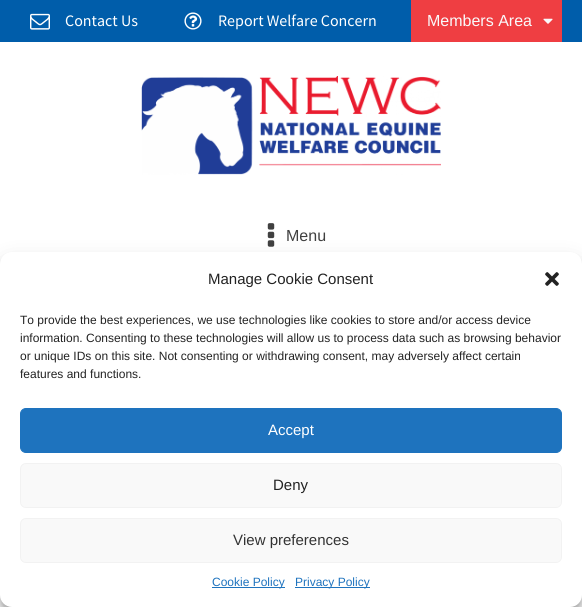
#include <cairo/cairo.h>
#include <math.h>
#include <stddef.h>

typedef struct { double x, y; const char *s; } line_t;
static cairo_t *cr;

static void rgb(unsigned color)
{
	cairo_set_source_rgb(cr, (color >> 16) / 255.0, (color >> 8 & 255) / 255.0, (color & 255) / 255.0);
}

static void rrect(double x, double y, double w, double h, double r)
{
	cairo_new_sub_path(cr);
	cairo_arc(cr, x + w - r, y + h - r, r, 0, M_PI / 2);
	cairo_arc(cr, x + r, y + h - r, r, M_PI / 2, M_PI);
	cairo_arc(cr, x + r, y + r, r, M_PI, 1.5 * M_PI);
	cairo_arc(cr, x + w - r, y + r, r, 1.5 * M_PI, 2 * M_PI);
	cairo_close_path(cr);
}

static void soft_shadow(double x, double y, double w, double h, double r, double blur, double alpha)
{
	cairo_push_group_with_content(cr, CAIRO_CONTENT_ALPHA);
	cairo_set_operator(cr, CAIRO_OPERATOR_SOURCE);
	for (int i = 15; i >= -15 && fmin(w, h) + blur * i / 3 > 0; i -= 2) {
		double e = blur * i / 6;
		cairo_set_source_rgba(cr, 0, 0, 0, alpha * erfc((i - 1) / 8.5) / 2);
		rrect(x - e, y - e, w + 2 * e, h + 2 * e, fmax(0, fmin(r + e + blur * .6, fmin(w, h) / 2 + e)));
		cairo_fill(cr);
	}
	cairo_pattern_t *soft = cairo_pop_group(cr);
	cairo_mask(cr, soft);
	cairo_pattern_destroy(soft);
}

static void image(const char *path, double x, double y, double w, double h)
{
	cairo_surface_t *image = cairo_image_surface_create_from_png(path);
	cairo_save(cr);
	cairo_set_source_surface(cr, image, x, y);
	cairo_rectangle(cr, x, y, w, h);
	cairo_fill(cr);
	cairo_restore(cr);
	cairo_surface_destroy(image);
}

int main(void) {
	cairo_surface_t *surface = cairo_image_surface_create(CAIRO_FORMAT_RGB24, 582, 607);
	cr = cairo_create(surface);
	cairo_font_options_t *options = cairo_font_options_create();
	cairo_font_options_set_hint_metrics(options, CAIRO_HINT_METRICS_OFF);
	cairo_font_options_set_hint_style(options, CAIRO_HINT_STYLE_NONE);
	cairo_set_font_options(cr, options);
	cairo_set_miter_limit(cr, 4);
	rgb(0xffffff);
	cairo_paint(cr);
	rgb(0x005daa);
	cairo_rectangle(cr, 0, 0, 582, 42);
	cairo_fill(cr);
	image("img/1.png", 30, 13, 20, 17);
	image("img/2.png", 184, 12, 18, 18);
	rgb(0xef3e42);
	cairo_rectangle(cr, 411, 0, 151, 42);
	cairo_fill(cr);
	image("img/3.png", 543, 18, 10, 6);
	image("img/4.png", 141, 76, 300, 99);
	image("img/5.png", 267, 223, 8, 24);
	rgb(0x000000);
	soft_shadow(0, 258, 582, 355, 12, 3, 0.23);
	soft_shadow(0, 262, 582, 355, 12, 10, 0.19);
	rgb(0xffffff);
	rrect(0, 252, 582, 355, 12);
	cairo_fill(cr);
	image("img/6.png", 545, 272, 14, 14);
	rgb(0x1e73be);
	rrect(20.5, 408.5, 541, 44, 5.5);
	cairo_fill_preserve(cr);
	cairo_set_line_width(cr, 1);
	cairo_stroke(cr);
	rgb(0xf9f9f9);
	rrect(20.5, 463.5, 541, 44, 5.5);
	cairo_fill_preserve(cr);
	rgb(0xf2f2f2);
	cairo_stroke(cr);
	rgb(0xf9f9f9);
	rrect(20.5, 518.5, 541, 44, 5.5);
	cairo_fill_preserve(cr);
	rgb(0xf2f2f2);
	cairo_stroke(cr);
	rgb(0x1e73be);
	cairo_rectangle(cr, 212, 587, 73, 1);
	cairo_fill(cr);
	cairo_rectangle(cr, 295, 587, 75, 1);
	cairo_fill(cr);
	cairo_select_font_face(cr, "Source Sans Pro", CAIRO_FONT_SLANT_NORMAL, CAIRO_FONT_WEIGHT_NORMAL);
	cairo_set_font_size(cr, 16);
	rgb(0xffffff);
	cairo_move_to(cr, 65, 26);
	cairo_show_text(cr, "Contact Us");
	cairo_move_to(cr, 218, 26);
	cairo_show_text(cr, "Report Welfare Concern");
	cairo_select_font_face(cr, "Liberation Sans", CAIRO_FONT_SLANT_NORMAL, CAIRO_FONT_WEIGHT_NORMAL);
	rgb(0xf9f9fa);
	cairo_move_to(cr, 427, 26);
	cairo_show_text(cr, "Members Area");
	rgb(0x404040);
	cairo_move_to(cr, 286, 241);
	cairo_show_text(cr, "Menu");
	cairo_set_font_size(cr, 15);
	rgb(0x222222);
	cairo_move_to(cr, 208, 284);
	cairo_show_text(cr, "Manage Cookie Consent");
	cairo_set_font_size(cr, 12);
	{
		static const line_t items[] = {
			{20, 324, "To provide the best experiences, we use technologies like cookies to store and/or access device"},
			{20, 342, "information. Consenting to these technologies will allow us to process data such as browsing behavior"},
			{20, 360, "or unique IDs on this site. Not consenting or withdrawing consent, may adversely affect certain"},
			{20, 378, "features and functions."},
		};
		for (size_t i = 0; i < sizeof items / sizeof *items; i++) {
			cairo_move_to(cr, items[i].x, items[i].y);
			cairo_show_text(cr, items[i].s);
		}
	}
	cairo_set_font_size(cr, 15);
	rgb(0xffffff);
	cairo_move_to(cr, 268, 435);
	cairo_show_text(cr, "Accept");
	rgb(0x222222);
	cairo_move_to(cr, 273, 490);
	cairo_show_text(cr, "Deny");
	rgb(0x333333);
	cairo_move_to(cr, 233, 545);
	cairo_show_text(cr, "View preferences");
	cairo_set_font_size(cr, 12);
	rgb(0x1e73be);
	cairo_move_to(cr, 212, 586);
	cairo_show_text(cr, "Cookie Policy");
	cairo_move_to(cr, 295, 586);
	cairo_show_text(cr, "Privacy Policy");
	cairo_surface_write_to_png(surface, "page.png");
	cairo_font_options_destroy(options);
	cairo_destroy(cr);
	cairo_surface_destroy(surface);
	return 0;
}
